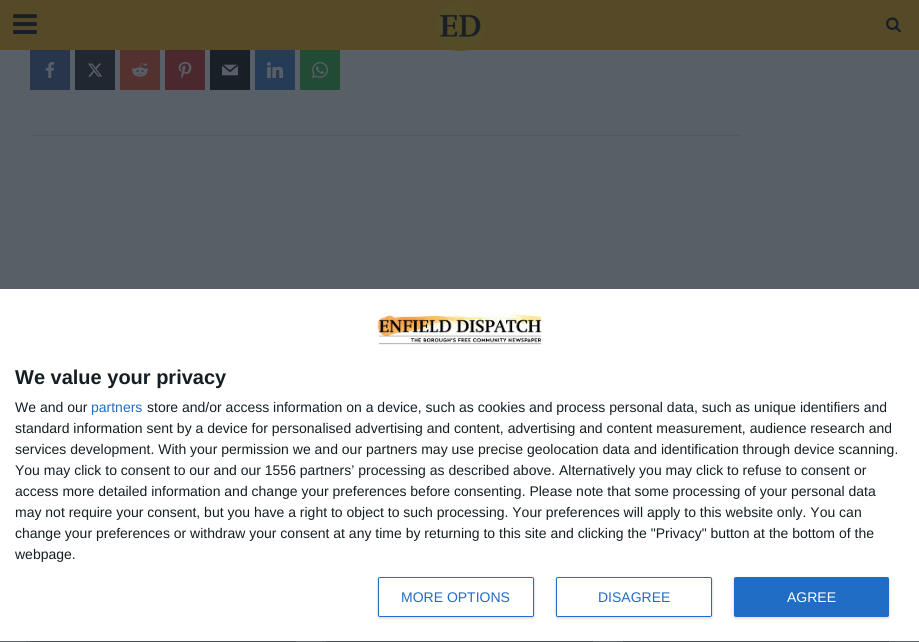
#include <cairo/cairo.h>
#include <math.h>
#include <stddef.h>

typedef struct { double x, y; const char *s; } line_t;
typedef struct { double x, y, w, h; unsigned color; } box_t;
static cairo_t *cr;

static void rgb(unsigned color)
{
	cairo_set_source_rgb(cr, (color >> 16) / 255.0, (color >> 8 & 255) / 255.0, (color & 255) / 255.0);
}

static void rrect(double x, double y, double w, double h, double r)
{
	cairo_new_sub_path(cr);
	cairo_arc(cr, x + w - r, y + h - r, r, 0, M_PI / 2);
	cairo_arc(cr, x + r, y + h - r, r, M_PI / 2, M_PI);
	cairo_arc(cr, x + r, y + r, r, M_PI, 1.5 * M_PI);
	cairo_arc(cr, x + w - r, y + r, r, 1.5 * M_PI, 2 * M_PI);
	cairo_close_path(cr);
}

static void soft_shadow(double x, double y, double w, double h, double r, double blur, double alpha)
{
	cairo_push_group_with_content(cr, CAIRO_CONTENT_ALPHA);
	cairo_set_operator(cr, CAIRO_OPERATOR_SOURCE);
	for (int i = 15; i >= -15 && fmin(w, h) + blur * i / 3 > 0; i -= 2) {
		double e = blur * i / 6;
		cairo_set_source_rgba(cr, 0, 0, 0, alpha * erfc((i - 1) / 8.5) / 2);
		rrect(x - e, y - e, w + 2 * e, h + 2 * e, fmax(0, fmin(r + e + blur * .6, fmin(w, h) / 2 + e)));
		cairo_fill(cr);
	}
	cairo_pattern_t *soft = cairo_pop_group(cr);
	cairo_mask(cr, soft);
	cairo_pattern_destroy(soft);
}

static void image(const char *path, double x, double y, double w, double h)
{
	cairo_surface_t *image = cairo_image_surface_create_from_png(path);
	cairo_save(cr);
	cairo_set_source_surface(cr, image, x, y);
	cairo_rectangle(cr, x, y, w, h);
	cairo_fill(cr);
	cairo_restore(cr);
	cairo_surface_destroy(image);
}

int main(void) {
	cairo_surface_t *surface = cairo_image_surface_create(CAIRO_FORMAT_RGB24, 919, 642);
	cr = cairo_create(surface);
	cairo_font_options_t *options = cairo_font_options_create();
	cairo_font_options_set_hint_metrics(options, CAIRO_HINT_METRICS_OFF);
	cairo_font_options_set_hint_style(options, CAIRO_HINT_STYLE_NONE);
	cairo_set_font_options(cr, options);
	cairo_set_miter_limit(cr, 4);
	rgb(0x595f67);
	cairo_paint(cr);
	rgb(0x564927);
	cairo_rectangle(cr, 0, 0, 919, 50);
	cairo_fill(cr);
	image("img/1.png", 13, 14, 24, 20);
	image("img/2.png", 435, 1, 50, 50);
	image("img/3.png", 886, 17, 15, 16);
	rgb(0x28364d);
	cairo_rectangle(cr, 30, 50, 40, 40);
	cairo_fill(cr);
	image("img/4.png", 45, 62, 10, 16);
	rgb(0x212730);
	cairo_rectangle(cr, 75, 50, 40, 40);
	cairo_fill(cr);
	image("img/5.png", 88, 63, 15, 14);
	rgb(0x53312f);
	cairo_rectangle(cr, 120, 50, 40, 40);
	cairo_fill(cr);
	image("img/6.png", 132, 63, 16, 14);
	rgb(0x4b282d);
	cairo_rectangle(cr, 165, 50, 40, 40);
	cairo_fill(cr);
	image("img/7.png", 178, 62, 14, 16);
	rgb(0x191f27);
	cairo_rectangle(cr, 210, 50, 40, 40);
	cairo_fill(cr);
	image("img/8.png", 222, 64, 16, 12);
	rgb(0x263b55);
	cairo_rectangle(cr, 255, 50, 40, 40);
	cairo_fill(cr);
	image("img/9.png", 267, 62, 16, 16);
	rgb(0x214b35);
	cairo_rectangle(cr, 300, 50, 40, 40);
	cairo_fill(cr);
	image("img/10.png", 312, 62, 16, 16);
	{
		static const box_t items[] = {
			{31, 135, 709, 1, 0x525860},
			{30, 641, 266, 1, 0x454b53},
			{326, 641, 267, 1, 0x454b53},
			{623, 641, 266, 1, 0x454b53},
			{0, 289, 919, 352, 0xffffff},
		};
		for (size_t i = 0; i < sizeof items / sizeof *items; i++) {
			rgb(items[i].color);
			cairo_rectangle(cr, items[i].x, items[i].y, items[i].w, items[i].h);
			cairo_fill(cr);
		}
	}
	image("img/11.png", 377, 314, 165, 31);
	rgb(0x000000);
	soft_shadow(377, 577, 158, 42, 3, 0.5, 0.1);
	rgb(0xffffff);
	rrect(378.5, 577.5, 155, 39, 1.5);
	cairo_fill_preserve(cr);
	rgb(0x206dc5);
	cairo_set_line_width(cr, 1);
	cairo_stroke(cr);
	rgb(0x000000);
	soft_shadow(555, 577, 158, 42, 3, 0.5, 0.1);
	rgb(0xffffff);
	rrect(556.5, 577.5, 155, 39, 1.5);
	cairo_fill_preserve(cr);
	rgb(0x206dc5);
	cairo_stroke(cr);
	rgb(0x000000);
	soft_shadow(733, 577, 157, 42, 3, 0.5, 0.1);
	rgb(0x206dc5);
	rrect(734, 577, 155, 40, 2);
	cairo_fill(cr);
	cairo_select_font_face(cr, "Liberation Sans", CAIRO_FONT_SLANT_NORMAL, CAIRO_FONT_WEIGHT_BOLD);
	cairo_set_font_size(cr, 20);
	rgb(0x141e23);
	cairo_move_to(cr, 15, 384);
	cairo_show_text(cr, "We value your privacy");
	cairo_select_font_face(cr, "Liberation Sans", CAIRO_FONT_SLANT_NORMAL, CAIRO_FONT_WEIGHT_NORMAL);
	cairo_set_font_size(cr, 14);
	cairo_move_to(cr, 15, 412);
	cairo_show_text(cr, "We and our");
	rgb(0x206dc5);
	cairo_move_to(cr, 91, 412);
	cairo_show_text(cr, "partners");
	rgb(0x141e23);
	{
		static const line_t items[] = {
			{147, 412, "store and/or access information on a device, such as cookies and process personal data, such as unique identifiers and"},
			{15, 433, "standard information sent by a device for personalised advertising and content, advertising and content measurement, audience research and"},
			{15, 454, "services development. With your permission we and our partners may use precise geolocation data and identification through device scanning."},
			{15, 475, "You may click to consent to our and our 1556 partners’ processing as described above. Alternatively you may click to refuse to consent or"},
			{15, 496, "access more detailed information and change your preferences before consenting. Please note that some processing of your personal data"},
			{15, 517, "may not require your consent, but you have a right to object to such processing. Your preferences will apply to this website only. You can"},
			{15, 538, "change your preferences or withdraw your consent at any time by returning to this site and clicking the \"Privacy\" button at the bottom of the"},
			{15, 559, "webpage."},
		};
		for (size_t i = 0; i < sizeof items / sizeof *items; i++) {
			cairo_move_to(cr, items[i].x, items[i].y);
			cairo_show_text(cr, items[i].s);
		}
	}
	rgb(0x206dc5);
	cairo_move_to(cr, 401, 602);
	cairo_show_text(cr, "MORE OPTIONS");
	cairo_move_to(cr, 598, 602);
	cairo_show_text(cr, "DISAGREE");
	rgb(0xffffff);
	cairo_move_to(cr, 787, 602);
	cairo_show_text(cr, "AGREE");
	cairo_surface_write_to_png(surface, "page.png");
	cairo_font_options_destroy(options);
	cairo_destroy(cr);
	cairo_surface_destroy(surface);
	return 0;
}
